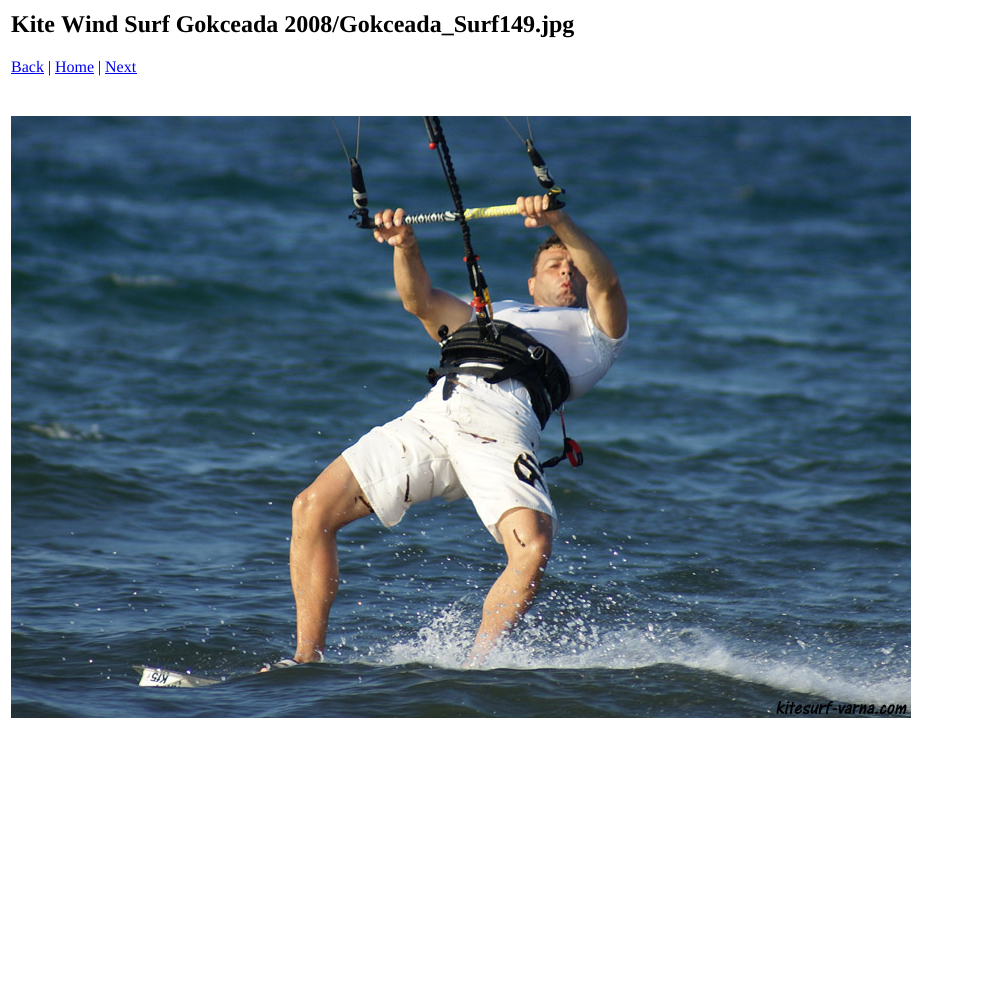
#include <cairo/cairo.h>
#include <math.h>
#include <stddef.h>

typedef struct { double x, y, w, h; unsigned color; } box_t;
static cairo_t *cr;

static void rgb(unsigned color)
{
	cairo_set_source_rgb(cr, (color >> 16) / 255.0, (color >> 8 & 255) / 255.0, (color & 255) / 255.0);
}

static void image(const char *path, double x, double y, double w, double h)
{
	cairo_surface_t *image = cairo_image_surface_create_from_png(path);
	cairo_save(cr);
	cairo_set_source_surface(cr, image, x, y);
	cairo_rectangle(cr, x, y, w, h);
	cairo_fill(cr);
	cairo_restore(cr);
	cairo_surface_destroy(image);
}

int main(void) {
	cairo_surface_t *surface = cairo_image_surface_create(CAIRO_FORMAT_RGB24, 1004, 1004);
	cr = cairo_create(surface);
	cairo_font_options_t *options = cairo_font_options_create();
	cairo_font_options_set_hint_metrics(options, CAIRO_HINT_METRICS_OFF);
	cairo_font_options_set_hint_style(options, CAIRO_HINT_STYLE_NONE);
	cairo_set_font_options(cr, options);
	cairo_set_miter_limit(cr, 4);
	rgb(0xffffff);
	cairo_paint(cr);
	{
		static const box_t items[] = {
			{11, 73, 33, 1, 0x0000ee},
			{55, 73, 39, 1, 0x0000ee},
			{105, 73, 32, 1, 0x0000ee},
		};
		for (size_t i = 0; i < sizeof items / sizeof *items; i++) {
			rgb(items[i].color);
			cairo_rectangle(cr, items[i].x, items[i].y, items[i].w, items[i].h);
			cairo_fill(cr);
		}
	}
	image("img/1.png", 11, 116, 900, 602);
	cairo_select_font_face(cr, "Liberation Serif", CAIRO_FONT_SLANT_NORMAL, CAIRO_FONT_WEIGHT_BOLD);
	cairo_set_font_size(cr, 24);
	rgb(0x000000);
	cairo_move_to(cr, 11, 32);
	cairo_show_text(cr, "Kite Wind Surf Gokceada 2008/Gokceada_Surf149.jpg");
	cairo_select_font_face(cr, "Liberation Serif", CAIRO_FONT_SLANT_NORMAL, CAIRO_FONT_WEIGHT_NORMAL);
	cairo_set_font_size(cr, 16);
	rgb(0x0000ee);
	cairo_move_to(cr, 11, 72);
	cairo_show_text(cr, "Back");
	rgb(0x000000);
	cairo_move_to(cr, 48, 72);
	cairo_show_text(cr, "|");
	rgb(0x0000ee);
	cairo_move_to(cr, 55, 72);
	cairo_show_text(cr, "Home");
	rgb(0x000000);
	cairo_move_to(cr, 98, 72);
	cairo_show_text(cr, "|");
	rgb(0x0000ee);
	cairo_move_to(cr, 105, 72);
	cairo_show_text(cr, "Next");
	cairo_surface_write_to_png(surface, "page.png");
	cairo_font_options_destroy(options);
	cairo_destroy(cr);
	cairo_surface_destroy(surface);
	return 0;
}
